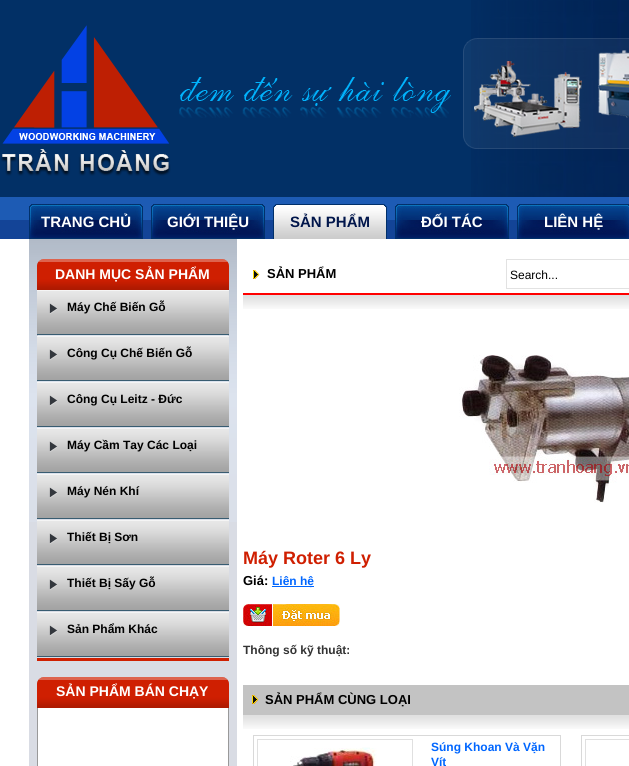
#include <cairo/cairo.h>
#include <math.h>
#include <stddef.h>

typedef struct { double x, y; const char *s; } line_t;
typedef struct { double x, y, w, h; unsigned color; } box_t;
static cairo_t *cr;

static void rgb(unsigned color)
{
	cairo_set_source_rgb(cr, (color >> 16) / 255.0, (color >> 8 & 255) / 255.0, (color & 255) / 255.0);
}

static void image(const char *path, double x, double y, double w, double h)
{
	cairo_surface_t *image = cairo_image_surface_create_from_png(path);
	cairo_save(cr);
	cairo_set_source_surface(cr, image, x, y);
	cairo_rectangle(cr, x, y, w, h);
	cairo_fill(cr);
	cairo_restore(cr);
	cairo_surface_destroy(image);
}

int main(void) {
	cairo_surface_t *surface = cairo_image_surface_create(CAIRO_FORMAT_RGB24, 629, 766);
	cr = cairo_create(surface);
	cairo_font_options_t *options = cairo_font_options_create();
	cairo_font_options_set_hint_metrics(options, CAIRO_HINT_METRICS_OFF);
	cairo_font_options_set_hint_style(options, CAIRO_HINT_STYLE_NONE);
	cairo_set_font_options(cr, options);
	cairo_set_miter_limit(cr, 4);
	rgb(0xffffff);
	cairo_paint(cr);
	rgb(0x023066);
	cairo_rectangle(cr, 0, 0, 629, 197);
	cairo_fill(cr);
	image("img/1.png", 471, 0, 158, 197);
	image("img/2.png", 0, 25, 171, 151);
	image("img/3.png", 179, 77, 272, 41);
	image("img/4.png", 463, 38, 166, 111);
	image("img/5.png", 0, 197, 629, 42);
	image("img/6.png", 29, 204, 114, 35);
	image("img/6.png", 151, 204, 114, 35);
	image("img/7.png", 273, 204, 114, 35);
	image("img/6.png", 395, 204, 114, 35);
	image("img/8.png", 517, 204, 112, 35);
	rgb(0xd9dce4);
	cairo_rectangle(cr, 29, 522, 208, 244);
	cairo_fill(cr);
	image("img/9.png", 29, 239, 208, 283);
	image("img/10.png", 37, 259, 192, 31);
	image("img/11.png", 37, 335, 192, 47);
	image("img/12.png", 37, 290, 192, 45);
	image("img/12.png", 37, 336, 192, 45);
	image("img/12.png", 37, 382, 192, 45);
	image("img/12.png", 37, 428, 192, 45);
	image("img/12.png", 37, 474, 192, 45);
	image("img/12.png", 37, 520, 192, 45);
	image("img/12.png", 37, 566, 192, 45);
	image("img/12.png", 37, 612, 192, 45);
	rgb(0xcf1f01);
	cairo_rectangle(cr, 37, 658, 192, 3);
	cairo_fill(cr);
	image("img/13.png", 37, 677, 192, 31);
	rgb(0xffffff);
	cairo_rectangle(cr, 38, 708, 190, 58);
	cairo_fill(cr);
	image("img/14.png", 38, 708, 190, 58);
	{
		static const box_t items[] = {
			{228, 708, 1, 58, 0x999999},
			{37, 708, 1, 58, 0x999999},
			{243, 293, 386, 2, 0xff0000},
		};
		for (size_t i = 0; i < sizeof items / sizeof *items; i++) {
			rgb(items[i].color);
			cairo_rectangle(cr, items[i].x, items[i].y, items[i].w, items[i].h);
			cairo_fill(cr);
		}
	}
	image("img/15.png", 253, 270, 7, 9);
	cairo_rectangle(cr, 506.5, 259.5, 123, 29);
	rgb(0xe2e2e2);
	cairo_set_line_width(cr, 1);
	cairo_stroke(cr);
	image("img/16.png", 243, 295, 386, 14);
	image("img/17.png", 459, 355, 170, 148);
	rgb(0x0066ff);
	cairo_rectangle(cr, 272, 586, 42, 1);
	cairo_fill(cr);
	image("img/18.png", 243, 604, 97, 22);
	rgb(0xc3c3c3);
	cairo_rectangle(cr, 243, 685, 386, 30);
	cairo_fill(cr);
	image("img/19.png", 252, 695, 7, 9);
	image("img/16.png", 243, 715, 386, 14);
	cairo_rectangle(cr, 253.5, 735.5, 307, 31);
	rgb(0xd9d9d9);
	cairo_stroke(cr);
	cairo_rectangle(cr, 257.5, 739.5, 155, 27);
	rgb(0xe0e0e0);
	cairo_stroke(cr);
	image("img/20.png", 290, 747, 87, 19);
	cairo_rectangle(cr, 581.5, 735.5, 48, 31);
	rgb(0xd9d9d9);
	cairo_stroke(cr);
	cairo_rectangle(cr, 585.5, 739.5, 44, 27);
	rgb(0xe0e0e0);
	cairo_stroke(cr);
	cairo_select_font_face(cr, "Liberation Sans", CAIRO_FONT_SLANT_NORMAL, CAIRO_FONT_WEIGHT_BOLD);
	cairo_set_font_size(cr, 15);
	rgb(0xffffff);
	cairo_move_to(cr, 41, 227);
	cairo_show_text(cr, "TRANG CHỦ");
	cairo_move_to(cr, 167, 227);
	cairo_show_text(cr, "GIỚI THIỆU");
	rgb(0x01164b);
	cairo_move_to(cr, 290, 227);
	cairo_show_text(cr, "SẢN PHẨM");
	rgb(0xffffff);
	cairo_move_to(cr, 421, 227);
	cairo_show_text(cr, "ĐỐI TÁC");
	cairo_move_to(cr, 544, 227);
	cairo_show_text(cr, "LIÊN HỆ");
	cairo_set_font_size(cr, 14);
	cairo_move_to(cr, 55, 279);
	cairo_show_text(cr, "DANH MỤC SẢN PHẨM");
	cairo_set_font_size(cr, 12);
	rgb(0x000000);
	{
		static const line_t items[] = {
			{67, 311, "Máy Chế Biến Gỗ"},
			{67, 357, "Công Cụ Chế Biến Gỗ"},
			{67, 403, "Công Cụ Leitz - Đức"},
			{67, 449, "Máy Cầm Tay Các Loại"},
			{67, 495, "Máy Nén Khí"},
			{67, 541, "Thiết Bị Sơn"},
			{67, 587, "Thiết Bị Sấy Gỗ"},
			{67, 633, "Sản Phẩm Khác"},
		};
		for (size_t i = 0; i < sizeof items / sizeof *items; i++) {
			cairo_move_to(cr, items[i].x, items[i].y);
			cairo_show_text(cr, items[i].s);
		}
	}
	cairo_set_font_size(cr, 14);
	rgb(0xffffff);
	cairo_move_to(cr, 56, 696);
	cairo_show_text(cr, "SẢN PHẨM BÁN CHẠY");
	cairo_set_font_size(cr, 13);
	rgb(0x000000);
	cairo_move_to(cr, 267, 278);
	cairo_show_text(cr, "SẢN PHẨM");
	cairo_select_font_face(cr, "Liberation Sans", CAIRO_FONT_SLANT_NORMAL, CAIRO_FONT_WEIGHT_NORMAL);
	cairo_set_font_size(cr, 12);
	cairo_move_to(cr, 510, 279);
	cairo_show_text(cr, "Search...");
	cairo_select_font_face(cr, "Liberation Sans", CAIRO_FONT_SLANT_NORMAL, CAIRO_FONT_WEIGHT_BOLD);
	cairo_set_font_size(cr, 18);
	rgb(0xcf1f01);
	cairo_move_to(cr, 243, 564);
	cairo_show_text(cr, "Máy Roter 6 Ly");
	cairo_set_font_size(cr, 13);
	rgb(0x000000);
	cairo_move_to(cr, 243, 585);
	cairo_show_text(cr, "Giá:");
	cairo_set_font_size(cr, 12);
	rgb(0x0066ff);
	cairo_move_to(cr, 272, 585);
	cairo_show_text(cr, "Liên hệ");
	rgb(0x333333);
	cairo_move_to(cr, 243, 654);
	cairo_show_text(cr, "Thông số kỹ thuật:");
	cairo_set_font_size(cr, 13);
	rgb(0x000000);
	cairo_move_to(cr, 265, 704);
	cairo_show_text(cr, "SẢN PHẨM CÙNG LOẠI");
	cairo_set_font_size(cr, 12);
	rgb(0x0066ff);
	cairo_move_to(cr, 431, 751);
	cairo_show_text(cr, "Súng Khoan Và Vặn");
	cairo_move_to(cr, 431, 766);
	cairo_show_text(cr, "Vít");
	cairo_surface_write_to_png(surface, "page.png");
	cairo_font_options_destroy(options);
	cairo_destroy(cr);
	cairo_surface_destroy(surface);
	return 0;
}
